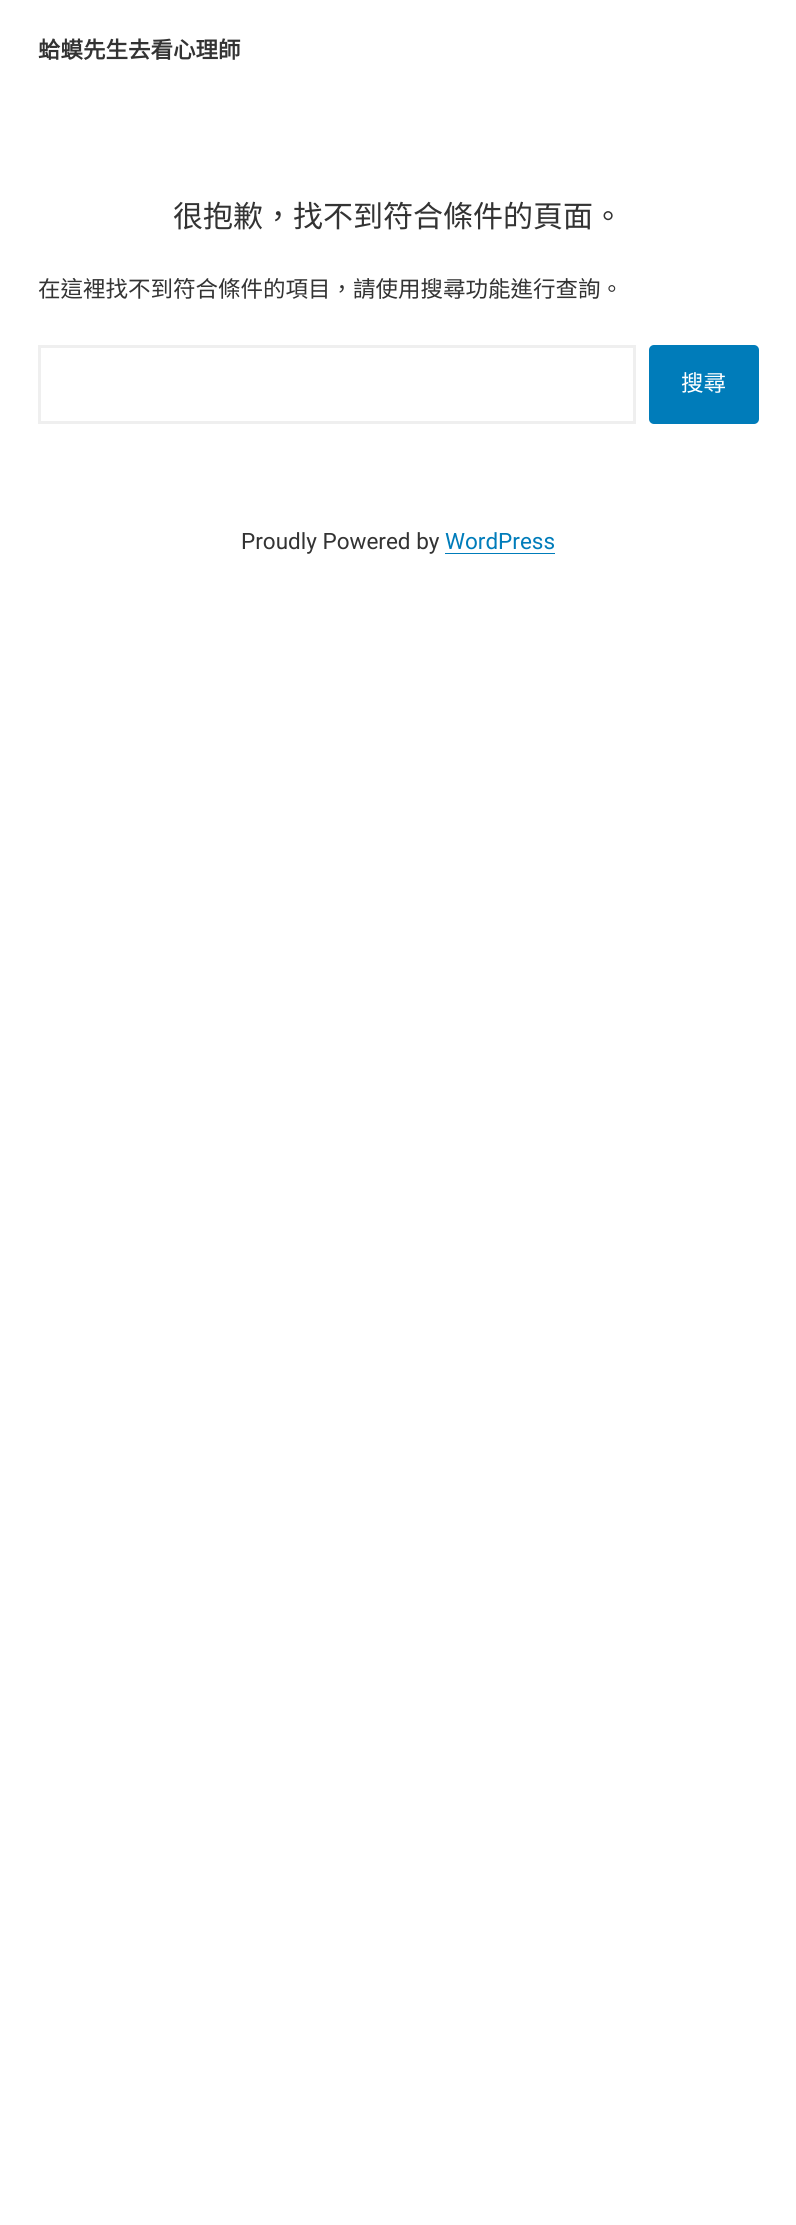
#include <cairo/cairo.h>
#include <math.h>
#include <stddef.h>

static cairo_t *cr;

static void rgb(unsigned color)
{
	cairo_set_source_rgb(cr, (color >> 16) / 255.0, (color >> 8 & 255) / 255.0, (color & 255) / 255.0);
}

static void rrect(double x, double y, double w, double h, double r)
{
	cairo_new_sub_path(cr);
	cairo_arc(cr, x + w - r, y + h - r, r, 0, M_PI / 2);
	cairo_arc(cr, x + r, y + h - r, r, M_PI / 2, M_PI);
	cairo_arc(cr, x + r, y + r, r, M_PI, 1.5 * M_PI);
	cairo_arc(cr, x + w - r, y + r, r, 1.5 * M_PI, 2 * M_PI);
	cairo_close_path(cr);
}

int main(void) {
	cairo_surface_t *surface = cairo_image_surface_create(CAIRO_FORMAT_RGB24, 796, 2225);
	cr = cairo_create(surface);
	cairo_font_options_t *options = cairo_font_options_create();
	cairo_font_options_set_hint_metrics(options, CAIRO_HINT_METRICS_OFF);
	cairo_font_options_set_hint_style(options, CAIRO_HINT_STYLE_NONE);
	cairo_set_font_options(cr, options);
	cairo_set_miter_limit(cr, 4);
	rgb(0xffffff);
	cairo_paint(cr);
	cairo_rectangle(cr, 39.5, 346.5, 595, 76);
	rgb(0xefefef);
	cairo_set_line_width(cr, 3);
	cairo_stroke(cr);
	rgb(0x007cba);
	rrect(649, 345, 110, 79, 5);
	cairo_fill(cr);
	cairo_rectangle(cr, 445, 553, 110, 1);
	cairo_fill(cr);
	cairo_select_font_face(cr, "Noto Sans CJK TC", CAIRO_FONT_SLANT_NORMAL, CAIRO_FONT_WEIGHT_BOLD);
	cairo_set_font_size(cr, 22.5);
	rgb(0x333333);
	cairo_move_to(cr, 38, 58);
	cairo_show_text(cr, "蛤蟆先生去看心理師");
	cairo_select_font_face(cr, "Noto Sans CJK TC", CAIRO_FONT_SLANT_NORMAL, CAIRO_FONT_WEIGHT_NORMAL);
	cairo_set_font_size(cr, 30);
	cairo_move_to(cr, 173, 227);
	cairo_show_text(cr, "很抱歉，找不到符合條件的頁面。");
	cairo_set_font_size(cr, 22.5);
	cairo_move_to(cr, 38, 297);
	cairo_show_text(cr, "在這裡找不到符合條件的項目，請使用搜尋功能進行查詢。");
	rgb(0xffffff);
	cairo_move_to(cr, 681, 391);
	cairo_show_text(cr, "搜尋");
	cairo_select_font_face(cr, "Roboto", CAIRO_FONT_SLANT_NORMAL, CAIRO_FONT_WEIGHT_NORMAL);
	rgb(0x333333);
	cairo_move_to(cr, 241, 549);
	cairo_show_text(cr, "Proudly Powered by");
	rgb(0x007cba);
	cairo_move_to(cr, 445, 549);
	cairo_show_text(cr, "WordPress");
	cairo_surface_write_to_png(surface, "page.png");
	cairo_font_options_destroy(options);
	cairo_destroy(cr);
	cairo_surface_destroy(surface);
	return 0;
}
